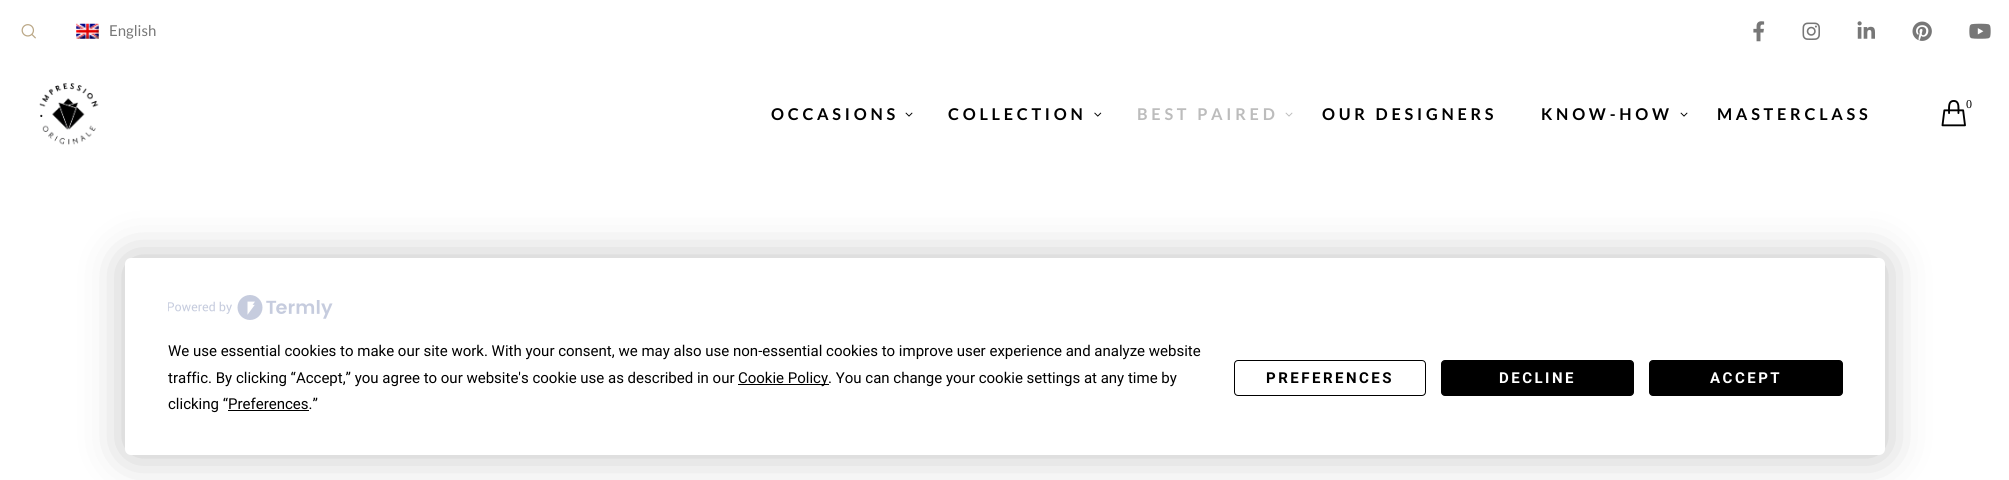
#include <cairo/cairo.h>
#include <math.h>
#include <stddef.h>

typedef struct { double x, y; const char *s; } line_t;
static cairo_t *cr;

static void rgb(unsigned color)
{
	cairo_set_source_rgb(cr, (color >> 16) / 255.0, (color >> 8 & 255) / 255.0, (color & 255) / 255.0);
}

static void tracked(double x, double y, const char *s, double letter, double word)
{
	cairo_move_to(cr, x, y);
	while (*s) {
		char ch[5] = {0};
		int n = 0;
		do ch[n++] = *s++; while ((*s & 0xC0) == 0x80);
		cairo_show_text(cr, ch);
		cairo_rel_move_to(cr, letter + word * (*ch == ' '), 0);
	}
}

static void rrect(double x, double y, double w, double h, double r)
{
	cairo_new_sub_path(cr);
	cairo_arc(cr, x + w - r, y + h - r, r, 0, M_PI / 2);
	cairo_arc(cr, x + r, y + h - r, r, M_PI / 2, M_PI);
	cairo_arc(cr, x + r, y + r, r, M_PI, 1.5 * M_PI);
	cairo_arc(cr, x + w - r, y + r, r, 1.5 * M_PI, 2 * M_PI);
	cairo_close_path(cr);
}

static void soft_shadow(double x, double y, double w, double h, double r, double blur, double alpha)
{
	cairo_push_group_with_content(cr, CAIRO_CONTENT_ALPHA);
	cairo_set_operator(cr, CAIRO_OPERATOR_SOURCE);
	for (int i = 15; i >= -15 && fmin(w, h) + blur * i / 3 > 0; i -= 2) {
		double e = blur * i / 6;
		cairo_set_source_rgba(cr, 0, 0, 0, alpha * erfc((i - 1) / 8.5) / 2);
		rrect(x - e, y - e, w + 2 * e, h + 2 * e, fmax(0, fmin(r + e + blur * .6, fmin(w, h) / 2 + e)));
		cairo_fill(cr);
	}
	cairo_pattern_t *soft = cairo_pop_group(cr);
	cairo_mask(cr, soft);
	cairo_pattern_destroy(soft);
}

static void image(const char *path, double x, double y, double w, double h)
{
	cairo_surface_t *image = cairo_image_surface_create_from_png(path);
	cairo_save(cr);
	cairo_set_source_surface(cr, image, x, y);
	cairo_rectangle(cr, x, y, w, h);
	cairo_fill(cr);
	cairo_restore(cr);
	cairo_surface_destroy(image);
}

int main(void) {
	cairo_surface_t *surface = cairo_image_surface_create(CAIRO_FORMAT_RGB24, 2009, 480);
	cr = cairo_create(surface);
	cairo_font_options_t *options = cairo_font_options_create();
	cairo_font_options_set_hint_metrics(options, CAIRO_HINT_METRICS_OFF);
	cairo_font_options_set_hint_style(options, CAIRO_HINT_STYLE_NONE);
	cairo_set_font_options(cr, options);
	cairo_set_miter_limit(cr, 4);
	rgb(0xffffff);
	cairo_paint(cr);
	image("img/1.png", 21, 24, 15, 15);
	image("img/2.png", 76, 23, 23, 16);
	image("img/3.png", 1753, 21, 12, 21);
	image("img/4.png", 1802, 22, 18, 18);
	image("img/5.png", 1857, 21, 18, 18);
	image("img/6.png", 1912, 21, 20, 20);
	image("img/7.png", 1969, 23, 22, 16);
	image("img/8.png", 39, 83, 60, 62);
	image("img/9.png", 1941, 100, 25, 27);
	image("img/10.png", 905, 112, 8, 5);
	image("img/11.png", 1094, 112, 8, 5);
	image("img/12.png", 1285, 112, 8, 5);
	image("img/10.png", 1680, 112, 8, 5);
	rgb(0x000000);
	soft_shadow(125, 258, 1760, 197, 6, 22, 0.25);
	rgb(0xffffff);
	rrect(125, 258, 1760, 197, 6);
	cairo_fill(cr);
	image("img/13.png", 168, 295, 165, 25);
	rgb(0x000000);
	cairo_rectangle(cr, 738, 384, 91, 1);
	cairo_fill(cr);
	cairo_rectangle(cr, 228, 410, 81, 1);
	cairo_fill(cr);
	rrect(1234.5, 360.5, 191, 35, 3.5);
	cairo_set_line_width(cr, 1);
	cairo_stroke(cr);
	rrect(1441.5, 360.5, 192, 35, 3.5);
	cairo_fill_preserve(cr);
	cairo_stroke(cr);
	rrect(1649.5, 360.5, 193, 35, 3.5);
	cairo_fill_preserve(cr);
	cairo_stroke(cr);
	cairo_select_font_face(cr, "Lato", CAIRO_FONT_SLANT_NORMAL, CAIRO_FONT_WEIGHT_NORMAL);
	cairo_set_font_size(cr, 15);
	rgb(0x777777);
	cairo_move_to(cr, 109, 36);
	cairo_show_text(cr, "English");
	cairo_select_font_face(cr, "Liberation Serif", CAIRO_FONT_SLANT_NORMAL, CAIRO_FONT_WEIGHT_NORMAL);
	cairo_set_font_size(cr, 12);
	rgb(0x000000);
	cairo_move_to(cr, 1966, 108);
	cairo_show_text(cr, "0");
	cairo_select_font_face(cr, "Lato", CAIRO_FONT_SLANT_NORMAL, CAIRO_FONT_WEIGHT_BOLD);
	cairo_set_font_size(cr, 16.25);
	tracked(771, 120, "OCCASIONS", 3.75, 0);
	tracked(948, 120, "COLLECTION", 3.75, 0);
	rgb(0xbcbcbc);
	tracked(1137, 120, "BEST PAIRED", 3.75, 0);
	rgb(0x000000);
	{
		static const line_t items[] = {
			{1322, 120, "OUR DESIGNERS"},
			{1541, 120, "KNOW-HOW"},
			{1717, 120, "MASTERCLASS"},
		};
		for (size_t i = 0; i < sizeof items / sizeof *items; i++) {
			tracked(items[i].x, items[i].y, items[i].s, 3.75, 0);
		}
	}
	cairo_select_font_face(cr, "Roboto", CAIRO_FONT_SLANT_NORMAL, CAIRO_FONT_WEIGHT_NORMAL);
	cairo_set_font_size(cr, 15);
	{
		static const line_t items[] = {
			{168, 356, "We use essential cookies to make our site work. With your consent, we may also use non-essential cookies to improve user experience and analyze website"},
			{168, 383, "traffic. By clicking “Accept,” you agree to our website's cookie use as described in our"},
			{738, 383, "Cookie Policy. You can change your cookie settings at any time by"},
			{168, 409, "clicking “Preferences.”"},
		};
		for (size_t i = 0; i < sizeof items / sizeof *items; i++) {
			cairo_move_to(cr, items[i].x, items[i].y);
			cairo_show_text(cr, items[i].s);
		}
	}
	cairo_select_font_face(cr, "Roboto", CAIRO_FONT_SLANT_NORMAL, CAIRO_FONT_WEIGHT_BOLD);
	tracked(1266, 383, "PREFERENCES", 2.5, 0);
	rgb(0xffffff);
	tracked(1499, 383, "DECLINE", 2.5, 0);
	tracked(1710, 383, "ACCEPT", 2.5, 0);
	cairo_surface_write_to_png(surface, "page.png");
	cairo_font_options_destroy(options);
	cairo_destroy(cr);
	cairo_surface_destroy(surface);
	return 0;
}
